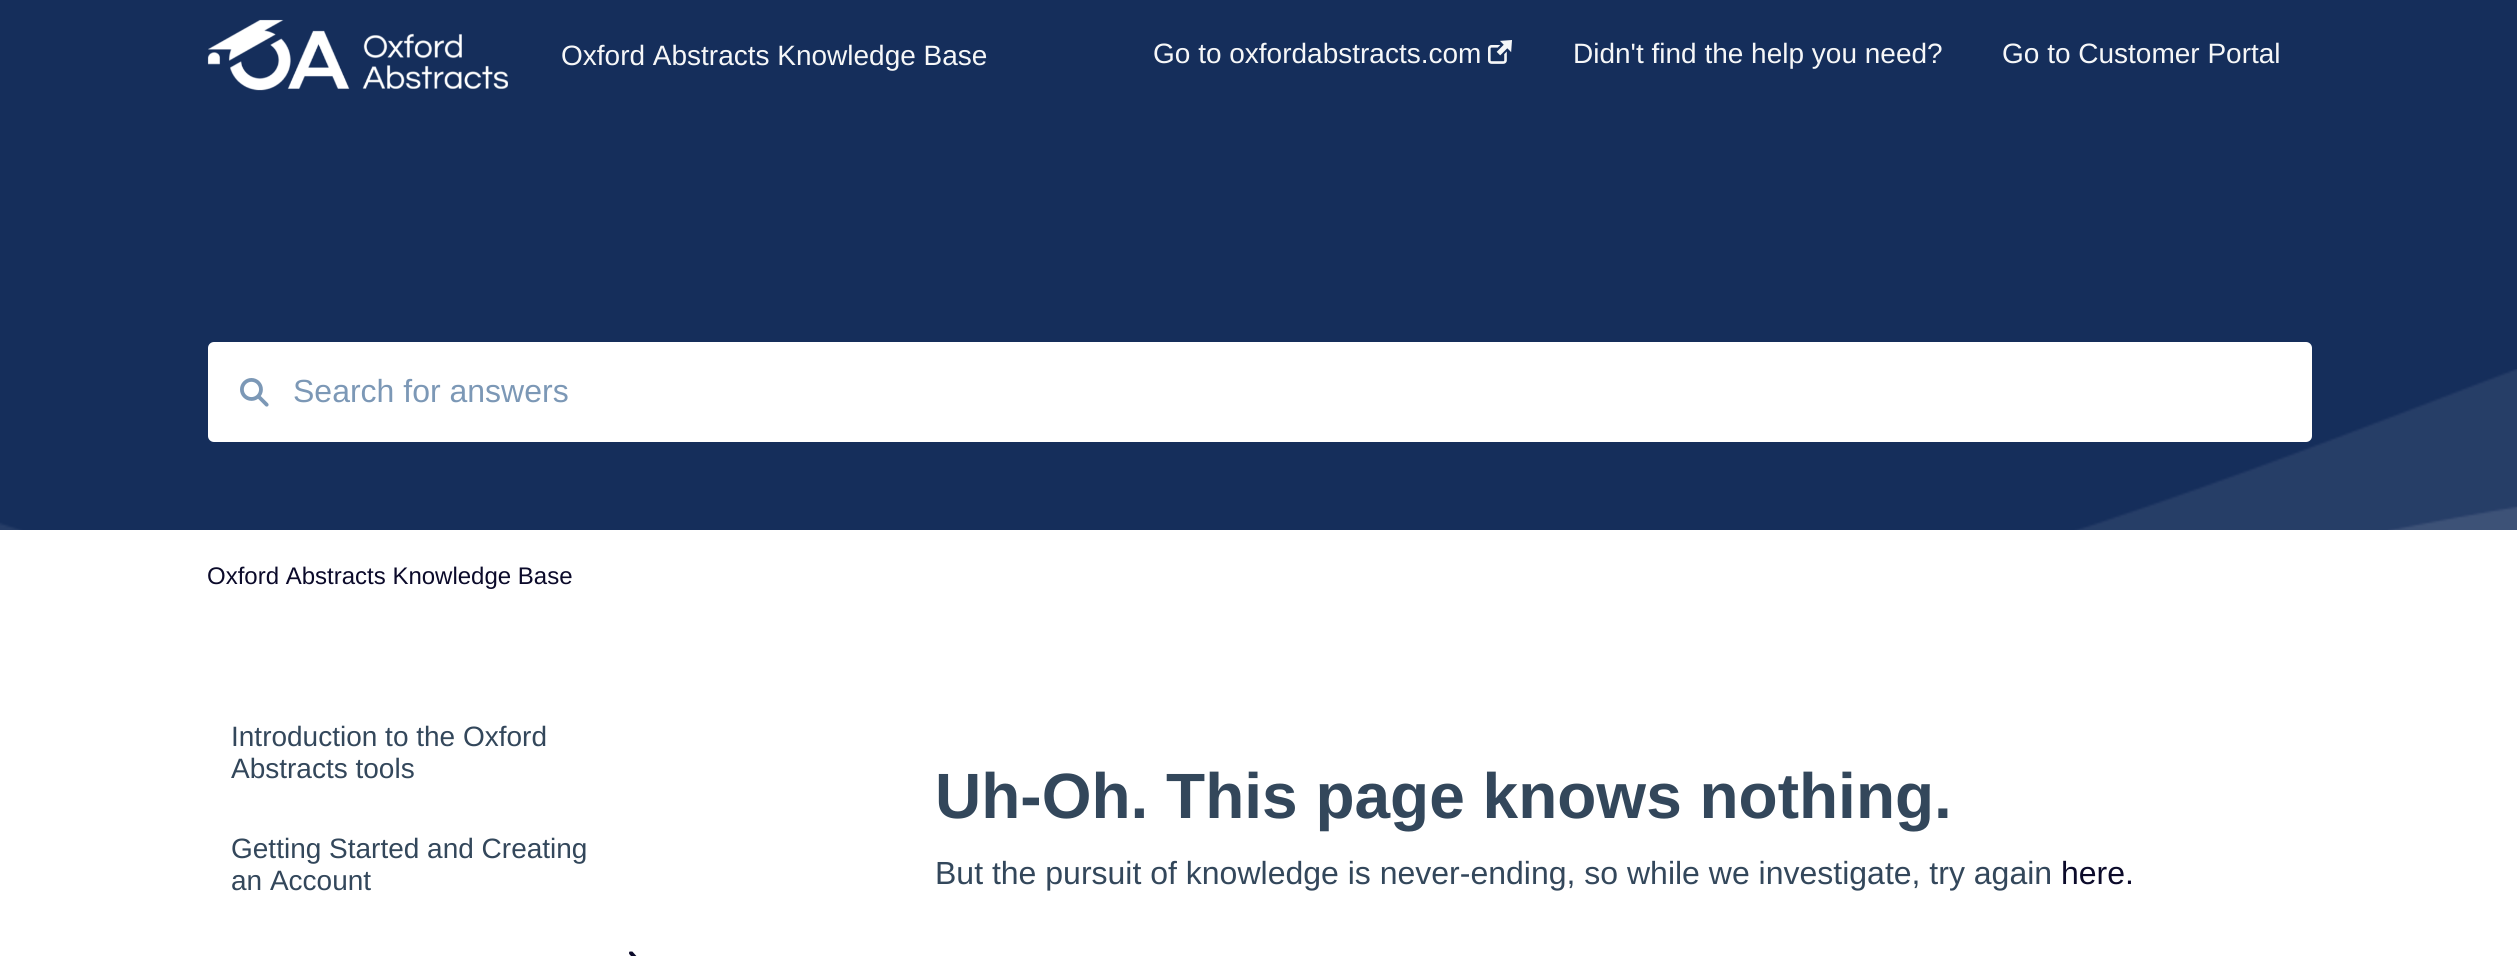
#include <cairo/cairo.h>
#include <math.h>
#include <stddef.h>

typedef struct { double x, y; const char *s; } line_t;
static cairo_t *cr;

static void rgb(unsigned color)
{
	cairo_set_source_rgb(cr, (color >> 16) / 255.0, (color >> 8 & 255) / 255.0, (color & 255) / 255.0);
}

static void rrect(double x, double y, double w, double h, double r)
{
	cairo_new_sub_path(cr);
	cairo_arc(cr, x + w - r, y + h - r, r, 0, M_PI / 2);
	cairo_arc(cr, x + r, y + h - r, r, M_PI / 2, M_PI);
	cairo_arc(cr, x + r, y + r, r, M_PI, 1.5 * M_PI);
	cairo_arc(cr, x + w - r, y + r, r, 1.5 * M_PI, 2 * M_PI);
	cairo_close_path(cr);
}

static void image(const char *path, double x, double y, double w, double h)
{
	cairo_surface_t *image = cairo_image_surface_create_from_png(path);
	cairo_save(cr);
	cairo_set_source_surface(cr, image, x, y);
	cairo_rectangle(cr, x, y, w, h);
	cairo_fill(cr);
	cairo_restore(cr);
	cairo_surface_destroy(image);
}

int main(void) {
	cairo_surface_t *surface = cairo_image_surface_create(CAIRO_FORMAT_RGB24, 2517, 956);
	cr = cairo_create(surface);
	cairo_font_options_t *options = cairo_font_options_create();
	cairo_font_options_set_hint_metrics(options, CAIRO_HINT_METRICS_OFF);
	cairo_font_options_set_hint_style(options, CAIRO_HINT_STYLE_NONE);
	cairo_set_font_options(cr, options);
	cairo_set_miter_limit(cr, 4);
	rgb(0xffffff);
	cairo_paint(cr);
	rgb(0x152e5b);
	cairo_rectangle(cr, 0, 0, 2517, 530);
	cairo_fill(cr);
	image("img/1.png", 207, 19, 301, 72);
	image("img/2.png", 1488, 40, 24, 24);
	image("img/3.png", 0, 369, 2517, 161);
	rgb(0xffffff);
	rrect(208, 342, 2104, 100, 6);
	cairo_fill(cr);
	image("img/4.png", 240, 378, 29, 29);
	cairo_save(cr);
	cairo_new_path(cr);
	cairo_move_to(cr, 628, 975.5);
	cairo_line_to(cr, 628, 951.5);
	cairo_line_to(cr, 642, 951.5);
	cairo_line_to(cr, 642, 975.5);
	cairo_close_path(cr);
	cairo_clip(cr);
	cairo_new_path(cr);
	cairo_move_to(cr, 631, 953);
	cairo_line_to(cr, 639, 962);
	cairo_line_to(cr, 631, 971);
	rgb(0x0b0a2a);
	cairo_set_line_width(cr, 4);
	cairo_set_line_cap(cr, CAIRO_LINE_CAP_ROUND);
	cairo_set_line_join(cr, CAIRO_LINE_JOIN_ROUND);
	cairo_stroke(cr);
	cairo_restore(cr);
	cairo_select_font_face(cr, "Liberation Sans", CAIRO_FONT_SLANT_NORMAL, CAIRO_FONT_WEIGHT_NORMAL);
	cairo_set_font_size(cr, 28);
	rgb(0xf6f7f8);
	{
		static const line_t items[] = {
			{561, 65, "Oxford Abstracts Knowledge Base"},
			{1153, 63, "Go to oxfordabstracts.com"},
			{1573, 63, "Didn't find the help you need?"},
			{2002, 63, "Go to Customer Portal"},
		};
		for (size_t i = 0; i < sizeof items / sizeof *items; i++) {
			cairo_move_to(cr, items[i].x, items[i].y);
			cairo_show_text(cr, items[i].s);
		}
	}
	cairo_set_font_size(cr, 32);
	rgb(0x7c98b6);
	cairo_move_to(cr, 293, 402);
	cairo_show_text(cr, "Search for answers");
	cairo_set_font_size(cr, 24);
	rgb(0x0b0a2a);
	cairo_move_to(cr, 207, 584);
	cairo_show_text(cr, "Oxford Abstracts Knowledge Base");
	cairo_set_font_size(cr, 28);
	rgb(0x33475b);
	{
		static const line_t items[] = {
			{231, 746, "Introduction to the Oxford"},
			{231, 778, "Abstracts tools"},
			{231, 858, "Getting Started and Creating"},
			{231, 890, "an Account"},
		};
		for (size_t i = 0; i < sizeof items / sizeof *items; i++) {
			cairo_move_to(cr, items[i].x, items[i].y);
			cairo_show_text(cr, items[i].s);
		}
	}
	cairo_select_font_face(cr, "Liberation Sans", CAIRO_FONT_SLANT_NORMAL, CAIRO_FONT_WEIGHT_BOLD);
	cairo_set_font_size(cr, 64);
	cairo_move_to(cr, 935, 818);
	cairo_show_text(cr, "Uh-Oh. This page knows nothing.");
	cairo_select_font_face(cr, "Liberation Sans", CAIRO_FONT_SLANT_NORMAL, CAIRO_FONT_WEIGHT_NORMAL);
	cairo_set_font_size(cr, 32);
	cairo_move_to(cr, 935, 884);
	cairo_show_text(cr, "But the pursuit of knowledge is never-ending, so while we investigate, try again");
	rgb(0x0b0a2a);
	cairo_move_to(cr, 2061, 884);
	cairo_show_text(cr, "here.");
	cairo_surface_write_to_png(surface, "page.png");
	cairo_font_options_destroy(options);
	cairo_destroy(cr);
	cairo_surface_destroy(surface);
	return 0;
}
